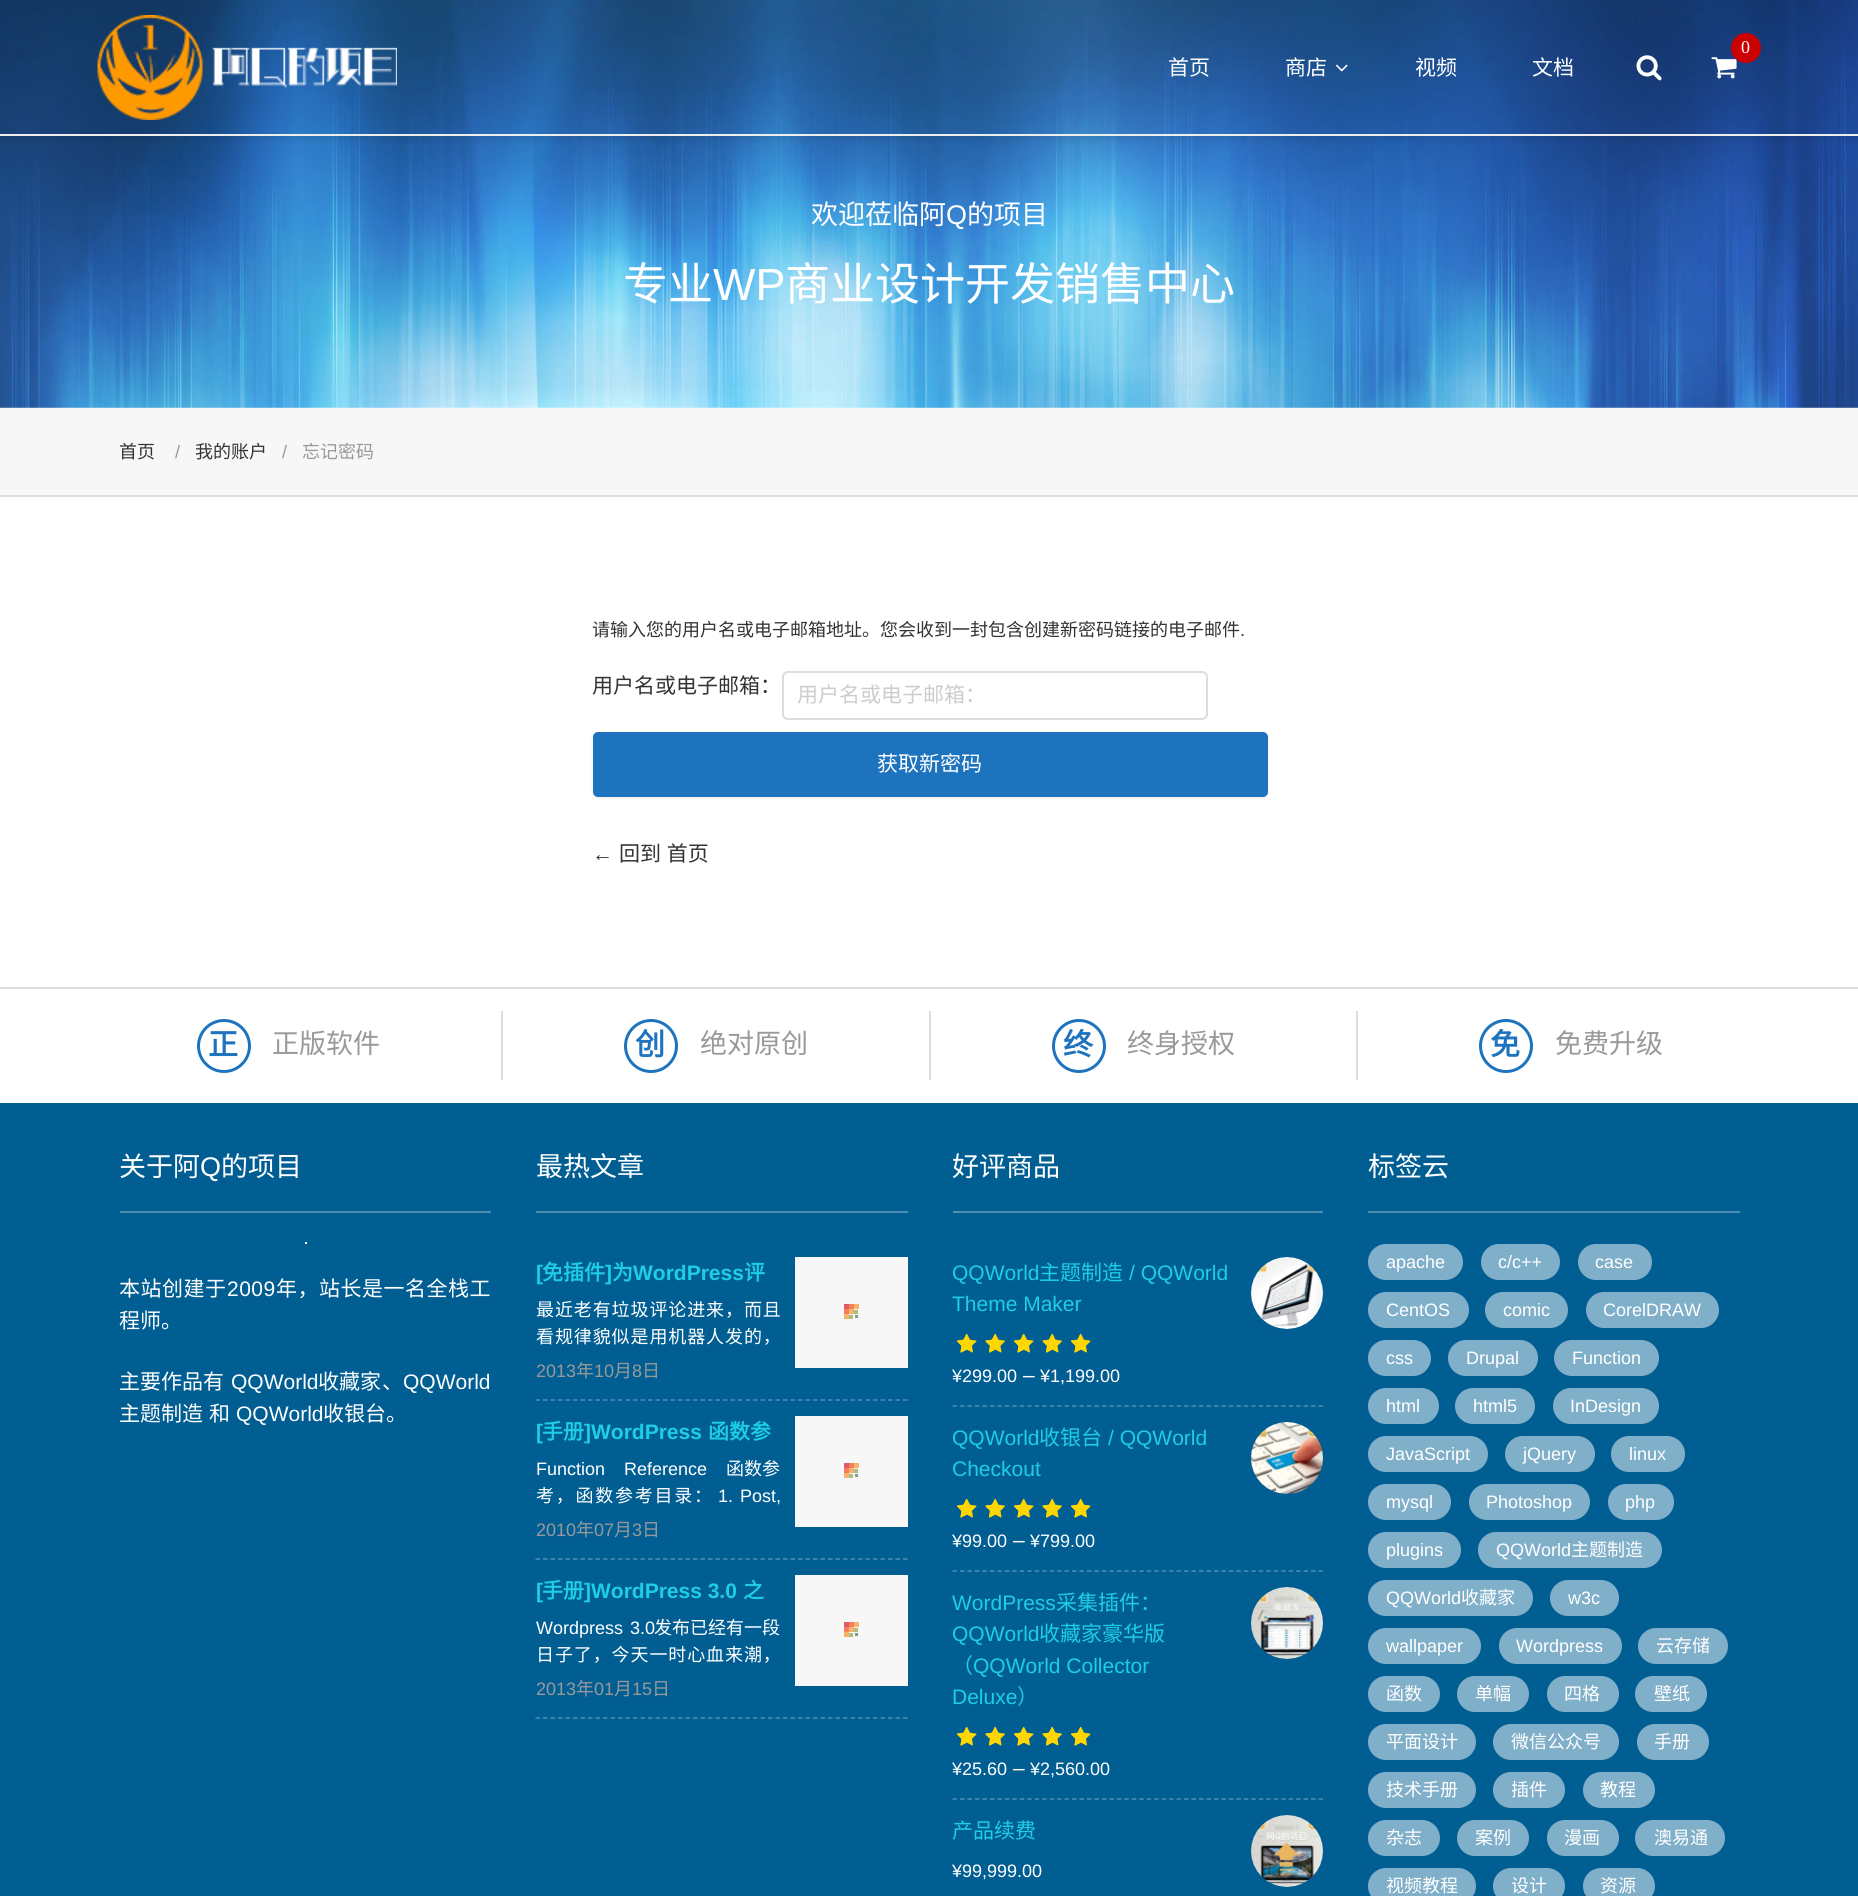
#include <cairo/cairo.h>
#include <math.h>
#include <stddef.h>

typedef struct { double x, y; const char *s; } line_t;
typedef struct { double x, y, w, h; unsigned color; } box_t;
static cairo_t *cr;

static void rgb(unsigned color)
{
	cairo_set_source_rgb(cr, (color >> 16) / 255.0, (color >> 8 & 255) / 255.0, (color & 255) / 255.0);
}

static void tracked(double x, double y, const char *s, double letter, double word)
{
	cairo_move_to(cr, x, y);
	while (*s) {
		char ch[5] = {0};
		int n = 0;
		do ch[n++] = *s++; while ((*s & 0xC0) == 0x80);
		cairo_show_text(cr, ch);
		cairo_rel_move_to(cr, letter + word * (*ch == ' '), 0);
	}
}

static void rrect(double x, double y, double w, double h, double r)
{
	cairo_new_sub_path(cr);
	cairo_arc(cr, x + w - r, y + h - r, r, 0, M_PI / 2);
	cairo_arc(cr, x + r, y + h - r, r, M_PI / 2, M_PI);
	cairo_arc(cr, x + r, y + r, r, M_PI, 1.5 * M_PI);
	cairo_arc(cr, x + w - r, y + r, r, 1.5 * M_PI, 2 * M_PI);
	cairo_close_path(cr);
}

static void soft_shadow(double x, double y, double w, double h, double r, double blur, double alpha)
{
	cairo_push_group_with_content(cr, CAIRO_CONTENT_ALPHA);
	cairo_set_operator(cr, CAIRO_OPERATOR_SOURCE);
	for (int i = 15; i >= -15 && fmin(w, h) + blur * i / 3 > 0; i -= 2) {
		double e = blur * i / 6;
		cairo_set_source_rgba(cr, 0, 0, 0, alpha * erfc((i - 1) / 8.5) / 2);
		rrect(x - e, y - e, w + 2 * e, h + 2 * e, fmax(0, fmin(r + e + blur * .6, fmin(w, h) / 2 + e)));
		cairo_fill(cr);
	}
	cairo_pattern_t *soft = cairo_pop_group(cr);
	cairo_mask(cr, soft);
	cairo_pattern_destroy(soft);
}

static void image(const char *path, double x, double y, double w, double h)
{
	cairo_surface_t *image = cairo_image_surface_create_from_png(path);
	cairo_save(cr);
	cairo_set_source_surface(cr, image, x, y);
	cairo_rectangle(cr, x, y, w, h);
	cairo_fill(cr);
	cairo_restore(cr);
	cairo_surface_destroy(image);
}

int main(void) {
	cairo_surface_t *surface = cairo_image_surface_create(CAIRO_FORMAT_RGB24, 1858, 1896);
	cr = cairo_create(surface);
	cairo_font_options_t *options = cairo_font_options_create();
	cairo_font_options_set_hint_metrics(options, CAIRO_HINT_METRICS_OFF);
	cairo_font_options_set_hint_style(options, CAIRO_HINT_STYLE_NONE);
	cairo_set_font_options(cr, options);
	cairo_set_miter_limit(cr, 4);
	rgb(0xffffff);
	cairo_paint(cr);
	image("img/5.png", 0, 0, 1858, 408);
	cairo_save(cr);
	cairo_rectangle(cr, 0, 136, 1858, 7);
	cairo_clip(cr);
	rgb(0x000000);
	soft_shadow(0, 0, 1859, 135, 0, 7.5, 0.15);
	cairo_restore(cr);
	rgb(0xeeeeee);
	cairo_rectangle(cr, 0, 134, 1858, 2);
	cairo_fill(cr);
	image("img/1.png", 97, 15, 300, 105);
	image("img/2.png", 1711, 57, 26, 22);
	rgb(0xcc0000);
	cairo_arc(cr, 1746, 48, 15, 0, 2 * M_PI);
	cairo_fill(cr);
	image("img/3.png", 1335, 64, 13, 8);
	image("img/4.png", 1636, 55, 26, 26);
	rgb(0xf7f7f7);
	cairo_rectangle(cr, 0, 408, 1858, 87);
	cairo_fill(cr);
	rgb(0xdddddd);
	cairo_rectangle(cr, 0, 495, 1858, 2);
	cairo_fill(cr);
	rrect(783, 672, 424, 47, 5);
	cairo_stroke(cr);
	rgb(0x656565);
	soft_shadow(593, 734, 675, 64, 5, 1.5, 0.15);
	rgb(0x1e73be);
	rrect(594, 733, 673, 63, 4);
	cairo_fill_preserve(cr);
	cairo_stroke(cr);
	rgb(0xdddddd);
	cairo_rectangle(cr, 0, 987, 1858, 2);
	cairo_fill(cr);
	cairo_arc(cr, 224, 1046, 25.5, 0, 2 * M_PI);
	rgb(0x1e73be);
	cairo_set_line_width(cr, 3);
	cairo_stroke(cr);
	rgb(0xdddddd);
	cairo_rectangle(cr, 501, 1011, 2, 69);
	cairo_fill(cr);
	cairo_arc(cr, 651, 1046, 25.5, 0, 2 * M_PI);
	rgb(0x1e73be);
	cairo_stroke(cr);
	rgb(0xdddddd);
	cairo_rectangle(cr, 929, 1011, 2, 69);
	cairo_fill(cr);
	cairo_arc(cr, 1079, 1046, 25.5, 0, 2 * M_PI);
	rgb(0x1e73be);
	cairo_stroke(cr);
	rgb(0xdddddd);
	cairo_rectangle(cr, 1356, 1011, 2, 69);
	cairo_fill(cr);
	cairo_arc(cr, 1506, 1046, 25.5, 0, 2 * M_PI);
	rgb(0x1e73be);
	cairo_stroke(cr);
	{
		static const box_t items[] = {
			{0, 1103, 1858, 793, 0x015e93},
			{120, 1211, 371, 2, 0x4d8eb3},
			{305, 1242, 2, 2, 0xf7f7f7},
			{536, 1211, 372, 2, 0x4d8eb3},
		};
		for (size_t i = 0; i < sizeof items / sizeof *items; i++) {
			rgb(items[i].color);
			cairo_rectangle(cr, items[i].x, items[i].y, items[i].w, items[i].h);
			cairo_fill(cr);
		}
	}
	cairo_new_path(cr);
	cairo_move_to(cr, 535.5, 1400);
	cairo_line_to(cr, 907.5, 1400);
	cairo_set_line_width(cr, 1.5);
	cairo_set_dash(cr, (double[]){4.5, 3}, 2, 0);
	cairo_stroke(cr);
	rgb(0xf7f7f7);
	cairo_rectangle(cr, 795, 1257, 113, 111);
	cairo_fill(cr);
	image("img/6.png", 844, 1304, 15, 15);
	cairo_new_path(cr);
	cairo_move_to(cr, 535.5, 1559);
	cairo_line_to(cr, 907.5, 1559);
	rgb(0x4d8eb3);
	cairo_stroke(cr);
	rgb(0xf7f7f7);
	cairo_rectangle(cr, 795, 1416, 113, 111);
	cairo_fill(cr);
	image("img/6.png", 844, 1463, 15, 15);
	cairo_new_path(cr);
	cairo_move_to(cr, 535.5, 1718);
	cairo_line_to(cr, 907.5, 1718);
	rgb(0x4d8eb3);
	cairo_stroke(cr);
	rgb(0xf7f7f7);
	cairo_rectangle(cr, 795, 1575, 113, 111);
	cairo_fill(cr);
	image("img/6.png", 844, 1622, 15, 15);
	rgb(0x4d8eb3);
	cairo_rectangle(cr, 953, 1211, 370, 2);
	cairo_fill(cr);
	cairo_new_path(cr);
	cairo_move_to(cr, 952.5, 1406);
	cairo_line_to(cr, 1323, 1406);
	cairo_set_dash(cr, (double[]){4.5, 2.97}, 2, 0);
	cairo_stroke(cr);
	image("img/7.png", 1251, 1257, 72, 72);
	image("img/8.png", 957, 1333, 20, 20);
	image("img/9.png", 957, 1333, 10, 20);
	image("img/10.png", 985, 1333, 20, 20);
	image("img/8.png", 1014, 1333, 20, 20);
	image("img/9.png", 1014, 1333, 10, 20);
	image("img/10.png", 1042, 1333, 20, 20);
	image("img/8.png", 1071, 1333, 20, 20);
	image("img/11.png", 985, 1334, 11, 19);
	image("img/11.png", 1042, 1334, 11, 19);
	image("img/9.png", 1071, 1333, 10, 20);
	cairo_new_path(cr);
	cairo_move_to(cr, 952.5, 1571);
	cairo_line_to(cr, 1323, 1571);
	cairo_stroke(cr);
	image("img/12.png", 1251, 1422, 72, 72);
	image("img/8.png", 957, 1498, 20, 20);
	image("img/9.png", 957, 1498, 10, 20);
	image("img/10.png", 985, 1498, 20, 20);
	image("img/8.png", 1014, 1498, 20, 20);
	image("img/9.png", 1014, 1498, 10, 20);
	image("img/10.png", 1042, 1498, 20, 20);
	image("img/8.png", 1071, 1498, 20, 20);
	image("img/11.png", 985, 1499, 11, 19);
	image("img/11.png", 1042, 1499, 11, 19);
	image("img/9.png", 1071, 1498, 10, 20);
	cairo_new_path(cr);
	cairo_move_to(cr, 952.5, 1799);
	cairo_line_to(cr, 1323, 1799);
	cairo_stroke(cr);
	image("img/13.png", 1251, 1587, 72, 72);
	image("img/8.png", 957, 1726, 20, 20);
	image("img/9.png", 957, 1726, 10, 20);
	image("img/10.png", 985, 1726, 20, 20);
	image("img/8.png", 1014, 1726, 20, 20);
	image("img/9.png", 1014, 1726, 10, 20);
	image("img/10.png", 1042, 1726, 20, 20);
	image("img/8.png", 1071, 1726, 20, 20);
	image("img/11.png", 985, 1727, 11, 19);
	image("img/11.png", 1042, 1727, 11, 19);
	image("img/9.png", 1071, 1726, 10, 20);
	image("img/14.png", 1251, 1815, 72, 72);
	cairo_rectangle(cr, 1368, 1211, 372, 2);
	cairo_fill(cr);
	rgb(0x80afc9);
	rrect(1368, 1244, 95, 36, 18);
	cairo_fill(cr);
	rrect(1481, 1244, 79, 36, 18);
	cairo_fill(cr);
	rrect(1578, 1244, 74, 36, 18);
	cairo_fill(cr);
	rrect(1368, 1292, 101, 36, 18);
	cairo_fill(cr);
	rrect(1485, 1292, 83, 36, 18);
	cairo_fill(cr);
	rrect(1586, 1292, 133, 36, 18);
	cairo_fill(cr);
	rrect(1368, 1340, 63, 36, 18);
	cairo_fill(cr);
	rrect(1448, 1340, 90, 36, 18);
	cairo_fill(cr);
	rrect(1554, 1340, 105, 36, 18);
	cairo_fill(cr);
	rrect(1368, 1388, 71, 36, 18);
	cairo_fill(cr);
	rrect(1455, 1388, 80, 36, 18);
	cairo_fill(cr);
	rrect(1553, 1388, 106, 36, 18);
	cairo_fill(cr);
	rrect(1368, 1436, 120, 36, 18);
	cairo_fill(cr);
	rrect(1505, 1436, 90, 36, 18);
	cairo_fill(cr);
	rrect(1611, 1436, 74, 36, 18);
	cairo_fill(cr);
	rrect(1368, 1484, 83, 36, 18);
	cairo_fill(cr);
	rrect(1469, 1484, 121, 36, 18);
	cairo_fill(cr);
	rrect(1608, 1484, 66, 36, 18);
	cairo_fill(cr);
	rrect(1368, 1532, 93, 36, 18);
	cairo_fill(cr);
	rrect(1478, 1532, 184, 36, 18);
	cairo_fill(cr);
	rrect(1368, 1580, 165, 36, 18);
	cairo_fill(cr);
	rrect(1550, 1580, 69, 36, 18);
	cairo_fill(cr);
	rrect(1368, 1628, 113, 36, 18);
	cairo_fill(cr);
	rrect(1499, 1628, 123, 36, 18);
	cairo_fill(cr);
	rrect(1638, 1628, 90, 36, 18);
	cairo_fill(cr);
	rrect(1368, 1676, 72, 36, 18);
	cairo_fill(cr);
	rrect(1457, 1676, 72, 36, 18);
	cairo_fill(cr);
	rrect(1547, 1676, 72, 36, 18);
	cairo_fill(cr);
	rrect(1635, 1676, 72, 36, 18);
	cairo_fill(cr);
	rrect(1368, 1724, 108, 36, 18);
	cairo_fill(cr);
	rrect(1493, 1724, 126, 36, 18);
	cairo_fill(cr);
	rrect(1637, 1724, 72, 36, 18);
	cairo_fill(cr);
	rrect(1368, 1772, 108, 36, 18);
	cairo_fill(cr);
	rrect(1493, 1772, 72, 36, 18);
	cairo_fill(cr);
	rrect(1583, 1772, 72, 36, 18);
	cairo_fill(cr);
	rrect(1368, 1820, 72, 36, 18);
	cairo_fill(cr);
	rrect(1457, 1820, 72, 36, 18);
	cairo_fill(cr);
	rrect(1547, 1820, 72, 36, 18);
	cairo_fill(cr);
	rrect(1635, 1820, 90, 36, 18);
	cairo_fill(cr);
	rrect(1368, 1868, 108, 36, 18);
	cairo_fill(cr);
	rrect(1493, 1868, 72, 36, 18);
	cairo_fill(cr);
	rrect(1583, 1868, 72, 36, 18);
	cairo_fill(cr);
	cairo_select_font_face(cr, "Liberation Serif", CAIRO_FONT_SLANT_NORMAL, CAIRO_FONT_WEIGHT_NORMAL);
	cairo_set_font_size(cr, 18);
	rgb(0xffffff);
	cairo_move_to(cr, 1741, 53);
	cairo_show_text(cr, "0");
	cairo_select_font_face(cr, "Noto Sans CJK SC", CAIRO_FONT_SLANT_NORMAL, CAIRO_FONT_WEIGHT_NORMAL);
	cairo_set_font_size(cr, 21);
	{
		static const line_t items[] = {
			{1168, 75, "首页"},
			{1285, 75, "商店"},
			{1415, 75, "视频"},
			{1532, 75, "文档"},
		};
		for (size_t i = 0; i < sizeof items / sizeof *items; i++) {
			cairo_move_to(cr, items[i].x, items[i].y);
			cairo_show_text(cr, items[i].s);
		}
	}
	cairo_set_font_size(cr, 27);
	cairo_move_to(cr, 811, 224);
	cairo_show_text(cr, "欢迎莅临阿");
	cairo_select_font_face(cr, "Liberation Sans", CAIRO_FONT_SLANT_NORMAL, CAIRO_FONT_WEIGHT_NORMAL);
	cairo_move_to(cr, 946, 224);
	cairo_show_text(cr, "Q");
	cairo_select_font_face(cr, "Noto Sans CJK SC", CAIRO_FONT_SLANT_NORMAL, CAIRO_FONT_WEIGHT_NORMAL);
	cairo_move_to(cr, 967, 224);
	cairo_show_text(cr, "的项目");
	cairo_set_font_size(cr, 45);
	cairo_move_to(cr, 623, 300);
	cairo_show_text(cr, "专业");
	cairo_select_font_face(cr, "Liberation Sans", CAIRO_FONT_SLANT_NORMAL, CAIRO_FONT_WEIGHT_NORMAL);
	cairo_move_to(cr, 713, 300);
	cairo_show_text(cr, "WP");
	cairo_select_font_face(cr, "Noto Sans CJK SC", CAIRO_FONT_SLANT_NORMAL, CAIRO_FONT_WEIGHT_NORMAL);
	cairo_move_to(cr, 785, 300);
	cairo_show_text(cr, "商业设计开发销售中心");
	cairo_set_font_size(cr, 18);
	rgb(0x333333);
	cairo_move_to(cr, 119, 458);
	cairo_show_text(cr, "首页");
	cairo_select_font_face(cr, "Liberation Sans", CAIRO_FONT_SLANT_NORMAL, CAIRO_FONT_WEIGHT_NORMAL);
	rgb(0x999999);
	cairo_move_to(cr, 175, 458);
	cairo_show_text(cr, "/");
	cairo_select_font_face(cr, "Noto Sans CJK SC", CAIRO_FONT_SLANT_NORMAL, CAIRO_FONT_WEIGHT_NORMAL);
	rgb(0x333333);
	cairo_move_to(cr, 195, 458);
	cairo_show_text(cr, "我的账户");
	cairo_select_font_face(cr, "Liberation Sans", CAIRO_FONT_SLANT_NORMAL, CAIRO_FONT_WEIGHT_NORMAL);
	rgb(0x999999);
	cairo_move_to(cr, 282, 458);
	cairo_show_text(cr, "/");
	cairo_select_font_face(cr, "Noto Sans CJK SC", CAIRO_FONT_SLANT_NORMAL, CAIRO_FONT_WEIGHT_NORMAL);
	cairo_move_to(cr, 302, 458);
	cairo_show_text(cr, "忘记密码");
	rgb(0x333333);
	cairo_move_to(cr, 592, 636);
	cairo_show_text(cr, "请输入您的用户名或电子邮箱地址。您会收到一封包含创建新密码链接的电子邮件");
	cairo_select_font_face(cr, "Liberation Sans", CAIRO_FONT_SLANT_NORMAL, CAIRO_FONT_WEIGHT_NORMAL);
	cairo_move_to(cr, 1240, 636);
	cairo_show_text(cr, ".");
	cairo_select_font_face(cr, "Noto Sans CJK SC", CAIRO_FONT_SLANT_NORMAL, CAIRO_FONT_WEIGHT_NORMAL);
	cairo_set_font_size(cr, 21);
	cairo_move_to(cr, 592, 693);
	cairo_show_text(cr, "用户名或电子邮箱：");
	rgb(0xcccccc);
	cairo_move_to(cr, 797, 702);
	cairo_show_text(cr, "用户名或电子邮箱：");
	rgb(0xffffff);
	cairo_move_to(cr, 877, 771);
	cairo_show_text(cr, "获取新密码");
	cairo_select_font_face(cr, "Liberation Sans", CAIRO_FONT_SLANT_NORMAL, CAIRO_FONT_WEIGHT_NORMAL);
	rgb(0x333333);
	cairo_move_to(cr, 592, 861);
	cairo_show_text(cr, "←");
	cairo_select_font_face(cr, "Noto Sans CJK SC", CAIRO_FONT_SLANT_NORMAL, CAIRO_FONT_WEIGHT_NORMAL);
	tracked(619, 861, "回到 首页", 0, 1);
	cairo_select_font_face(cr, "Noto Sans CJK SC", CAIRO_FONT_SLANT_NORMAL, CAIRO_FONT_WEIGHT_BOLD);
	cairo_set_font_size(cr, 30);
	rgb(0x1e73be);
	cairo_move_to(cr, 208, 1055);
	cairo_show_text(cr, "正");
	cairo_select_font_face(cr, "Noto Sans CJK SC", CAIRO_FONT_SLANT_NORMAL, CAIRO_FONT_WEIGHT_NORMAL);
	cairo_set_font_size(cr, 27);
	rgb(0x999999);
	cairo_move_to(cr, 272, 1053);
	cairo_show_text(cr, "正版软件");
	cairo_select_font_face(cr, "Noto Sans CJK SC", CAIRO_FONT_SLANT_NORMAL, CAIRO_FONT_WEIGHT_BOLD);
	cairo_set_font_size(cr, 30);
	rgb(0x1e73be);
	cairo_move_to(cr, 635, 1055);
	cairo_show_text(cr, "创");
	cairo_select_font_face(cr, "Noto Sans CJK SC", CAIRO_FONT_SLANT_NORMAL, CAIRO_FONT_WEIGHT_NORMAL);
	cairo_set_font_size(cr, 27);
	rgb(0x999999);
	cairo_move_to(cr, 700, 1053);
	cairo_show_text(cr, "绝对原创");
	cairo_select_font_face(cr, "Noto Sans CJK SC", CAIRO_FONT_SLANT_NORMAL, CAIRO_FONT_WEIGHT_BOLD);
	cairo_set_font_size(cr, 30);
	rgb(0x1e73be);
	cairo_move_to(cr, 1063, 1055);
	cairo_show_text(cr, "终");
	cairo_select_font_face(cr, "Noto Sans CJK SC", CAIRO_FONT_SLANT_NORMAL, CAIRO_FONT_WEIGHT_NORMAL);
	cairo_set_font_size(cr, 27);
	rgb(0x999999);
	cairo_move_to(cr, 1127, 1053);
	cairo_show_text(cr, "终身授权");
	cairo_select_font_face(cr, "Noto Sans CJK SC", CAIRO_FONT_SLANT_NORMAL, CAIRO_FONT_WEIGHT_BOLD);
	cairo_set_font_size(cr, 30);
	rgb(0x1e73be);
	cairo_move_to(cr, 1490, 1055);
	cairo_show_text(cr, "免");
	cairo_select_font_face(cr, "Noto Sans CJK SC", CAIRO_FONT_SLANT_NORMAL, CAIRO_FONT_WEIGHT_NORMAL);
	cairo_set_font_size(cr, 27);
	rgb(0x999999);
	cairo_move_to(cr, 1555, 1053);
	cairo_show_text(cr, "免费升级");
	rgb(0xffffff);
	cairo_move_to(cr, 119, 1176);
	cairo_show_text(cr, "关于阿");
	cairo_select_font_face(cr, "Liberation Sans", CAIRO_FONT_SLANT_NORMAL, CAIRO_FONT_WEIGHT_NORMAL);
	cairo_move_to(cr, 200, 1176);
	cairo_show_text(cr, "Q");
	cairo_select_font_face(cr, "Noto Sans CJK SC", CAIRO_FONT_SLANT_NORMAL, CAIRO_FONT_WEIGHT_NORMAL);
	cairo_move_to(cr, 221, 1176);
	cairo_show_text(cr, "的项目");
	cairo_set_font_size(cr, 21);
	tracked(119, 1296, "本站创建于", 0.5, 0);
	cairo_select_font_face(cr, "Liberation Sans", CAIRO_FONT_SLANT_NORMAL, CAIRO_FONT_WEIGHT_NORMAL);
	tracked(227, 1296, "2009", 0.5, 0);
	cairo_select_font_face(cr, "Noto Sans CJK SC", CAIRO_FONT_SLANT_NORMAL, CAIRO_FONT_WEIGHT_NORMAL);
	tracked(276, 1296, "年，站长是一名全栈工", 0.5, 0);
	cairo_move_to(cr, 119, 1328);
	cairo_show_text(cr, "程师。");
	cairo_move_to(cr, 119, 1389);
	cairo_show_text(cr, "主要作品有");
	cairo_select_font_face(cr, "Liberation Sans", CAIRO_FONT_SLANT_NORMAL, CAIRO_FONT_WEIGHT_NORMAL);
	cairo_move_to(cr, 231, 1389);
	cairo_show_text(cr, "QQWorld");
	cairo_select_font_face(cr, "Noto Sans CJK SC", CAIRO_FONT_SLANT_NORMAL, CAIRO_FONT_WEIGHT_NORMAL);
	cairo_move_to(cr, 318, 1389);
	cairo_show_text(cr, "收藏家");
	cairo_move_to(cr, 382, 1389);
	cairo_show_text(cr, "、");
	cairo_select_font_face(cr, "Liberation Sans", CAIRO_FONT_SLANT_NORMAL, CAIRO_FONT_WEIGHT_NORMAL);
	cairo_move_to(cr, 403, 1389);
	cairo_show_text(cr, "QQWorld");
	cairo_select_font_face(cr, "Noto Sans CJK SC", CAIRO_FONT_SLANT_NORMAL, CAIRO_FONT_WEIGHT_NORMAL);
	cairo_move_to(cr, 119, 1421);
	cairo_show_text(cr, "主题制造");
	cairo_move_to(cr, 209, 1421);
	cairo_show_text(cr, "和");
	cairo_select_font_face(cr, "Liberation Sans", CAIRO_FONT_SLANT_NORMAL, CAIRO_FONT_WEIGHT_NORMAL);
	cairo_move_to(cr, 236, 1421);
	cairo_show_text(cr, "QQWorld");
	cairo_select_font_face(cr, "Noto Sans CJK SC", CAIRO_FONT_SLANT_NORMAL, CAIRO_FONT_WEIGHT_NORMAL);
	cairo_move_to(cr, 323, 1421);
	cairo_show_text(cr, "收银台。");
	cairo_set_font_size(cr, 27);
	cairo_move_to(cr, 536, 1176);
	cairo_show_text(cr, "最热文章");
	cairo_select_font_face(cr, "Liberation Sans", CAIRO_FONT_SLANT_NORMAL, CAIRO_FONT_WEIGHT_BOLD);
	cairo_set_font_size(cr, 21);
	rgb(0x1ecde8);
	cairo_move_to(cr, 536, 1280);
	cairo_show_text(cr, "[");
	cairo_select_font_face(cr, "Noto Sans CJK SC", CAIRO_FONT_SLANT_NORMAL, CAIRO_FONT_WEIGHT_BOLD);
	cairo_move_to(cr, 542, 1280);
	cairo_show_text(cr, "免插件");
	cairo_select_font_face(cr, "Liberation Sans", CAIRO_FONT_SLANT_NORMAL, CAIRO_FONT_WEIGHT_BOLD);
	cairo_move_to(cr, 605, 1280);
	cairo_show_text(cr, "]");
	cairo_select_font_face(cr, "Noto Sans CJK SC", CAIRO_FONT_SLANT_NORMAL, CAIRO_FONT_WEIGHT_BOLD);
	cairo_move_to(cr, 612, 1280);
	cairo_show_text(cr, "为");
	cairo_select_font_face(cr, "Liberation Sans", CAIRO_FONT_SLANT_NORMAL, CAIRO_FONT_WEIGHT_BOLD);
	cairo_move_to(cr, 633, 1280);
	cairo_show_text(cr, "WordPress");
	cairo_select_font_face(cr, "Noto Sans CJK SC", CAIRO_FONT_SLANT_NORMAL, CAIRO_FONT_WEIGHT_BOLD);
	cairo_move_to(cr, 744, 1280);
	cairo_show_text(cr, "评");
	cairo_select_font_face(cr, "Noto Sans CJK SC", CAIRO_FONT_SLANT_NORMAL, CAIRO_FONT_WEIGHT_NORMAL);
	cairo_set_font_size(cr, 18);
	rgb(0xffffff);
	tracked(536, 1316, "最近老有垃圾评论进来，而且", 0.9, 0);
	tracked(536, 1343, "看规律貌似是用机器人发的，", 0.9, 0);
	cairo_select_font_face(cr, "Liberation Sans", CAIRO_FONT_SLANT_NORMAL, CAIRO_FONT_WEIGHT_NORMAL);
	rgb(0x999999);
	cairo_move_to(cr, 536, 1377);
	cairo_show_text(cr, "2013");
	cairo_select_font_face(cr, "Noto Sans CJK SC", CAIRO_FONT_SLANT_NORMAL, CAIRO_FONT_WEIGHT_NORMAL);
	cairo_move_to(cr, 576, 1377);
	cairo_show_text(cr, "年");
	cairo_select_font_face(cr, "Liberation Sans", CAIRO_FONT_SLANT_NORMAL, CAIRO_FONT_WEIGHT_NORMAL);
	cairo_move_to(cr, 594, 1377);
	cairo_show_text(cr, "10");
	cairo_select_font_face(cr, "Noto Sans CJK SC", CAIRO_FONT_SLANT_NORMAL, CAIRO_FONT_WEIGHT_NORMAL);
	cairo_move_to(cr, 614, 1377);
	cairo_show_text(cr, "月");
	cairo_select_font_face(cr, "Liberation Sans", CAIRO_FONT_SLANT_NORMAL, CAIRO_FONT_WEIGHT_NORMAL);
	cairo_move_to(cr, 632, 1377);
	cairo_show_text(cr, "8");
	cairo_select_font_face(cr, "Noto Sans CJK SC", CAIRO_FONT_SLANT_NORMAL, CAIRO_FONT_WEIGHT_NORMAL);
	cairo_move_to(cr, 642, 1377);
	cairo_show_text(cr, "日");
	cairo_select_font_face(cr, "Liberation Sans", CAIRO_FONT_SLANT_NORMAL, CAIRO_FONT_WEIGHT_BOLD);
	cairo_set_font_size(cr, 21);
	rgb(0x1ecde8);
	cairo_move_to(cr, 536, 1439);
	cairo_show_text(cr, "[");
	cairo_select_font_face(cr, "Noto Sans CJK SC", CAIRO_FONT_SLANT_NORMAL, CAIRO_FONT_WEIGHT_BOLD);
	cairo_move_to(cr, 542, 1439);
	cairo_show_text(cr, "手册");
	cairo_select_font_face(cr, "Liberation Sans", CAIRO_FONT_SLANT_NORMAL, CAIRO_FONT_WEIGHT_BOLD);
	cairo_move_to(cr, 584, 1439);
	cairo_show_text(cr, "]WordPress");
	cairo_select_font_face(cr, "Noto Sans CJK SC", CAIRO_FONT_SLANT_NORMAL, CAIRO_FONT_WEIGHT_BOLD);
	cairo_move_to(cr, 708, 1439);
	cairo_show_text(cr, "函数参");
	cairo_select_font_face(cr, "Liberation Sans", CAIRO_FONT_SLANT_NORMAL, CAIRO_FONT_WEIGHT_NORMAL);
	cairo_set_font_size(cr, 18);
	rgb(0xffffff);
	tracked(536, 1475, "Function Reference", 0, 14);
	cairo_select_font_face(cr, "Noto Sans CJK SC", CAIRO_FONT_SLANT_NORMAL, CAIRO_FONT_WEIGHT_NORMAL);
	cairo_move_to(cr, 726, 1475);
	cairo_show_text(cr, "函数参");
	tracked(536, 1502, "考，函数参考目录：", 1.75, 0);
	cairo_select_font_face(cr, "Liberation Sans", CAIRO_FONT_SLANT_NORMAL, CAIRO_FONT_WEIGHT_NORMAL);
	tracked(718, 1502, "1. Post,", 0, 2);
	rgb(0x999999);
	cairo_move_to(cr, 536, 1536);
	cairo_show_text(cr, "2010");
	cairo_select_font_face(cr, "Noto Sans CJK SC", CAIRO_FONT_SLANT_NORMAL, CAIRO_FONT_WEIGHT_NORMAL);
	cairo_move_to(cr, 576, 1536);
	cairo_show_text(cr, "年");
	cairo_select_font_face(cr, "Liberation Sans", CAIRO_FONT_SLANT_NORMAL, CAIRO_FONT_WEIGHT_NORMAL);
	cairo_move_to(cr, 594, 1536);
	cairo_show_text(cr, "07");
	cairo_select_font_face(cr, "Noto Sans CJK SC", CAIRO_FONT_SLANT_NORMAL, CAIRO_FONT_WEIGHT_NORMAL);
	cairo_move_to(cr, 614, 1536);
	cairo_show_text(cr, "月");
	cairo_select_font_face(cr, "Liberation Sans", CAIRO_FONT_SLANT_NORMAL, CAIRO_FONT_WEIGHT_NORMAL);
	cairo_move_to(cr, 632, 1536);
	cairo_show_text(cr, "3");
	cairo_select_font_face(cr, "Noto Sans CJK SC", CAIRO_FONT_SLANT_NORMAL, CAIRO_FONT_WEIGHT_NORMAL);
	cairo_move_to(cr, 642, 1536);
	cairo_show_text(cr, "日");
	cairo_select_font_face(cr, "Liberation Sans", CAIRO_FONT_SLANT_NORMAL, CAIRO_FONT_WEIGHT_BOLD);
	cairo_set_font_size(cr, 21);
	rgb(0x1ecde8);
	cairo_move_to(cr, 536, 1598);
	cairo_show_text(cr, "[");
	cairo_select_font_face(cr, "Noto Sans CJK SC", CAIRO_FONT_SLANT_NORMAL, CAIRO_FONT_WEIGHT_BOLD);
	cairo_move_to(cr, 542, 1598);
	cairo_show_text(cr, "手册");
	cairo_select_font_face(cr, "Liberation Sans", CAIRO_FONT_SLANT_NORMAL, CAIRO_FONT_WEIGHT_BOLD);
	cairo_move_to(cr, 584, 1598);
	cairo_show_text(cr, "]WordPress 3.0");
	cairo_select_font_face(cr, "Noto Sans CJK SC", CAIRO_FONT_SLANT_NORMAL, CAIRO_FONT_WEIGHT_BOLD);
	cairo_move_to(cr, 743, 1598);
	cairo_show_text(cr, "之");
	cairo_select_font_face(cr, "Liberation Sans", CAIRO_FONT_SLANT_NORMAL, CAIRO_FONT_WEIGHT_NORMAL);
	cairo_set_font_size(cr, 18);
	rgb(0xffffff);
	tracked(536, 1634, "Wordpress 3.0", 0, 2);
	cairo_select_font_face(cr, "Noto Sans CJK SC", CAIRO_FONT_SLANT_NORMAL, CAIRO_FONT_WEIGHT_NORMAL);
	cairo_move_to(cr, 654, 1634);
	cairo_show_text(cr, "发布已经有一段");
	tracked(536, 1661, "日子了，今天一时心血来潮，", 0.9, 0);
	cairo_select_font_face(cr, "Liberation Sans", CAIRO_FONT_SLANT_NORMAL, CAIRO_FONT_WEIGHT_NORMAL);
	rgb(0x999999);
	cairo_move_to(cr, 536, 1695);
	cairo_show_text(cr, "2013");
	cairo_select_font_face(cr, "Noto Sans CJK SC", CAIRO_FONT_SLANT_NORMAL, CAIRO_FONT_WEIGHT_NORMAL);
	cairo_move_to(cr, 576, 1695);
	cairo_show_text(cr, "年");
	cairo_select_font_face(cr, "Liberation Sans", CAIRO_FONT_SLANT_NORMAL, CAIRO_FONT_WEIGHT_NORMAL);
	cairo_move_to(cr, 594, 1695);
	cairo_show_text(cr, "01");
	cairo_select_font_face(cr, "Noto Sans CJK SC", CAIRO_FONT_SLANT_NORMAL, CAIRO_FONT_WEIGHT_NORMAL);
	cairo_move_to(cr, 614, 1695);
	cairo_show_text(cr, "月");
	cairo_select_font_face(cr, "Liberation Sans", CAIRO_FONT_SLANT_NORMAL, CAIRO_FONT_WEIGHT_NORMAL);
	cairo_move_to(cr, 632, 1695);
	cairo_show_text(cr, "15");
	cairo_select_font_face(cr, "Noto Sans CJK SC", CAIRO_FONT_SLANT_NORMAL, CAIRO_FONT_WEIGHT_NORMAL);
	cairo_move_to(cr, 652, 1695);
	cairo_show_text(cr, "日");
	cairo_set_font_size(cr, 27);
	rgb(0xffffff);
	cairo_move_to(cr, 952, 1176);
	cairo_show_text(cr, "好评商品");
	cairo_select_font_face(cr, "Liberation Sans", CAIRO_FONT_SLANT_NORMAL, CAIRO_FONT_WEIGHT_NORMAL);
	cairo_set_font_size(cr, 21);
	rgb(0x1ecde8);
	cairo_move_to(cr, 952, 1280);
	cairo_show_text(cr, "QQWorld");
	cairo_select_font_face(cr, "Noto Sans CJK SC", CAIRO_FONT_SLANT_NORMAL, CAIRO_FONT_WEIGHT_NORMAL);
	cairo_move_to(cr, 1039, 1280);
	cairo_show_text(cr, "主题制造");
	cairo_select_font_face(cr, "Liberation Sans", CAIRO_FONT_SLANT_NORMAL, CAIRO_FONT_WEIGHT_NORMAL);
	cairo_move_to(cr, 1129, 1280);
	cairo_show_text(cr, "/ QQWorld");
	cairo_move_to(cr, 952, 1311);
	cairo_show_text(cr, "Theme Maker");
	cairo_set_font_size(cr, 18);
	rgb(0xffffff);
	cairo_move_to(cr, 952, 1382);
	cairo_show_text(cr, "¥299.00");
	cairo_set_font_size(cr, 21);
	cairo_move_to(cr, 1023, 1382);
	cairo_show_text(cr, "–");
	cairo_set_font_size(cr, 18);
	cairo_move_to(cr, 1040, 1382);
	cairo_show_text(cr, "¥1,199.00");
	cairo_set_font_size(cr, 21);
	rgb(0x1ecde8);
	cairo_move_to(cr, 952, 1445);
	cairo_show_text(cr, "QQWorld");
	cairo_select_font_face(cr, "Noto Sans CJK SC", CAIRO_FONT_SLANT_NORMAL, CAIRO_FONT_WEIGHT_NORMAL);
	cairo_move_to(cr, 1039, 1445);
	cairo_show_text(cr, "收银台");
	cairo_select_font_face(cr, "Liberation Sans", CAIRO_FONT_SLANT_NORMAL, CAIRO_FONT_WEIGHT_NORMAL);
	cairo_move_to(cr, 1108, 1445);
	cairo_show_text(cr, "/ QQWorld");
	cairo_move_to(cr, 952, 1476);
	cairo_show_text(cr, "Checkout");
	cairo_set_font_size(cr, 18);
	rgb(0xffffff);
	cairo_move_to(cr, 952, 1547);
	cairo_show_text(cr, "¥99.00");
	cairo_set_font_size(cr, 21);
	cairo_move_to(cr, 1013, 1547);
	cairo_show_text(cr, "–");
	cairo_set_font_size(cr, 18);
	cairo_move_to(cr, 1030, 1547);
	cairo_show_text(cr, "¥799.00");
	cairo_set_font_size(cr, 21);
	rgb(0x1ecde8);
	cairo_move_to(cr, 952, 1610);
	cairo_show_text(cr, "WordPress");
	cairo_select_font_face(cr, "Noto Sans CJK SC", CAIRO_FONT_SLANT_NORMAL, CAIRO_FONT_WEIGHT_NORMAL);
	cairo_move_to(cr, 1056, 1610);
	cairo_show_text(cr, "采集插件：");
	cairo_select_font_face(cr, "Liberation Sans", CAIRO_FONT_SLANT_NORMAL, CAIRO_FONT_WEIGHT_NORMAL);
	cairo_move_to(cr, 952, 1641);
	cairo_show_text(cr, "QQWorld");
	cairo_select_font_face(cr, "Noto Sans CJK SC", CAIRO_FONT_SLANT_NORMAL, CAIRO_FONT_WEIGHT_NORMAL);
	cairo_move_to(cr, 1039, 1641);
	cairo_show_text(cr, "收藏家豪华版");
	cairo_move_to(cr, 952, 1673);
	cairo_show_text(cr, "（");
	cairo_select_font_face(cr, "Liberation Sans", CAIRO_FONT_SLANT_NORMAL, CAIRO_FONT_WEIGHT_NORMAL);
	cairo_move_to(cr, 973, 1673);
	cairo_show_text(cr, "QQWorld Collector");
	cairo_move_to(cr, 952, 1704);
	cairo_show_text(cr, "Deluxe");
	cairo_select_font_face(cr, "Noto Sans CJK SC", CAIRO_FONT_SLANT_NORMAL, CAIRO_FONT_WEIGHT_NORMAL);
	cairo_move_to(cr, 1017, 1704);
	cairo_show_text(cr, "）");
	cairo_select_font_face(cr, "Liberation Sans", CAIRO_FONT_SLANT_NORMAL, CAIRO_FONT_WEIGHT_NORMAL);
	cairo_set_font_size(cr, 18);
	rgb(0xffffff);
	cairo_move_to(cr, 952, 1775);
	cairo_show_text(cr, "¥25.60");
	cairo_set_font_size(cr, 21);
	cairo_move_to(cr, 1013, 1775);
	cairo_show_text(cr, "–");
	cairo_set_font_size(cr, 18);
	cairo_move_to(cr, 1030, 1775);
	cairo_show_text(cr, "¥2,560.00");
	cairo_select_font_face(cr, "Noto Sans CJK SC", CAIRO_FONT_SLANT_NORMAL, CAIRO_FONT_WEIGHT_NORMAL);
	cairo_set_font_size(cr, 21);
	rgb(0x1ecde8);
	cairo_move_to(cr, 952, 1838);
	cairo_show_text(cr, "产品续费");
	cairo_select_font_face(cr, "Liberation Sans", CAIRO_FONT_SLANT_NORMAL, CAIRO_FONT_WEIGHT_NORMAL);
	cairo_set_font_size(cr, 18);
	rgb(0xffffff);
	cairo_move_to(cr, 952, 1877);
	cairo_show_text(cr, "¥99,999.00");
	cairo_select_font_face(cr, "Noto Sans CJK SC", CAIRO_FONT_SLANT_NORMAL, CAIRO_FONT_WEIGHT_NORMAL);
	cairo_set_font_size(cr, 27);
	cairo_move_to(cr, 1368, 1176);
	cairo_show_text(cr, "标签云");
	cairo_select_font_face(cr, "Liberation Sans", CAIRO_FONT_SLANT_NORMAL, CAIRO_FONT_WEIGHT_NORMAL);
	cairo_set_font_size(cr, 18);
	{
		static const line_t items[] = {
			{1386, 1268, "apache"},
			{1498, 1268, "c/c++"},
			{1595, 1268, "case"},
			{1386, 1316, "CentOS"},
			{1503, 1316, "comic"},
			{1603, 1316, "CorelDRAW"},
			{1386, 1364, "css"},
			{1466, 1364, "Drupal"},
			{1572, 1364, "Function"},
			{1386, 1412, "html"},
			{1473, 1412, "html5"},
			{1570, 1412, "InDesign"},
			{1386, 1460, "JavaScript"},
			{1523, 1460, "jQuery"},
			{1629, 1460, "linux"},
			{1386, 1508, "mysql"},
			{1486, 1508, "Photoshop"},
			{1625, 1508, "php"},
			{1386, 1556, "plugins"},
			{1496, 1556, "QQWorld"},
		};
		for (size_t i = 0; i < sizeof items / sizeof *items; i++) {
			cairo_move_to(cr, items[i].x, items[i].y);
			cairo_show_text(cr, items[i].s);
		}
	}
	cairo_select_font_face(cr, "Noto Sans CJK SC", CAIRO_FONT_SLANT_NORMAL, CAIRO_FONT_WEIGHT_NORMAL);
	cairo_move_to(cr, 1571, 1556);
	cairo_show_text(cr, "主题制造");
	cairo_select_font_face(cr, "Liberation Sans", CAIRO_FONT_SLANT_NORMAL, CAIRO_FONT_WEIGHT_NORMAL);
	cairo_move_to(cr, 1386, 1604);
	cairo_show_text(cr, "QQWorld");
	cairo_select_font_face(cr, "Noto Sans CJK SC", CAIRO_FONT_SLANT_NORMAL, CAIRO_FONT_WEIGHT_NORMAL);
	cairo_move_to(cr, 1461, 1604);
	cairo_show_text(cr, "收藏家");
	cairo_select_font_face(cr, "Liberation Sans", CAIRO_FONT_SLANT_NORMAL, CAIRO_FONT_WEIGHT_NORMAL);
	{
		static const line_t items[] = {
			{1568, 1604, "w3c"},
			{1386, 1652, "wallpaper"},
			{1516, 1652, "Wordpress"},
		};
		for (size_t i = 0; i < sizeof items / sizeof *items; i++) {
			cairo_move_to(cr, items[i].x, items[i].y);
			cairo_show_text(cr, items[i].s);
		}
	}
	cairo_select_font_face(cr, "Noto Sans CJK SC", CAIRO_FONT_SLANT_NORMAL, CAIRO_FONT_WEIGHT_NORMAL);
	{
		static const line_t items[] = {
			{1656, 1652, "云存储"},
			{1386, 1700, "函数"},
			{1475, 1700, "单幅"},
			{1564, 1700, "四格"},
			{1654, 1700, "壁纸"},
			{1386, 1748, "平面设计"},
			{1511, 1748, "微信公众号"},
			{1654, 1748, "手册"},
			{1386, 1796, "技术手册"},
			{1511, 1796, "插件"},
			{1600, 1796, "教程"},
			{1386, 1844, "杂志"},
			{1475, 1844, "案例"},
			{1564, 1844, "漫画"},
			{1654, 1844, "澳易通"},
			{1386, 1892, "视频教程"},
			{1511, 1892, "设计"},
			{1600, 1892, "资源"},
		};
		for (size_t i = 0; i < sizeof items / sizeof *items; i++) {
			cairo_move_to(cr, items[i].x, items[i].y);
			cairo_show_text(cr, items[i].s);
		}
	}
	cairo_surface_write_to_png(surface, "page.png");
	cairo_font_options_destroy(options);
	cairo_destroy(cr);
	cairo_surface_destroy(surface);
	return 0;
}
